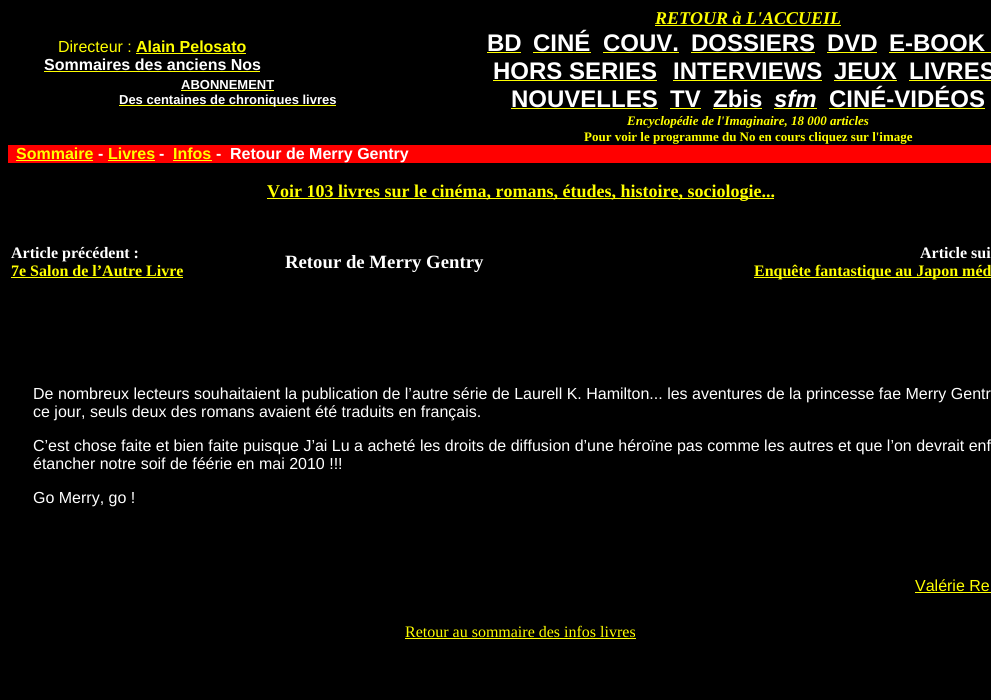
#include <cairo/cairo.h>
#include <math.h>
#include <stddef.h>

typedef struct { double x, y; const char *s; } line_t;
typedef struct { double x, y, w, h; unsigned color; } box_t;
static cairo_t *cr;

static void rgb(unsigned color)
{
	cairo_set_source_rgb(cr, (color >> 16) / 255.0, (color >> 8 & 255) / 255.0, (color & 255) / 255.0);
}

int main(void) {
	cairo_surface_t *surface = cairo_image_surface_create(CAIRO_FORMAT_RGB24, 991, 700);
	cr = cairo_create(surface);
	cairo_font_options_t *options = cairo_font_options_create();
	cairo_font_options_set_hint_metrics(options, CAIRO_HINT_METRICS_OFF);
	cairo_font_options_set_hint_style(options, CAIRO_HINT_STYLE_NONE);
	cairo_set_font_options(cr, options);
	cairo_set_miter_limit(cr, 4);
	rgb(0x000000);
	cairo_paint(cr);
	{
		static const box_t items[] = {
			{136, 53, 110, 1, 0xffff00},
			{44, 71, 216, 1, 0xffff00},
			{181, 90, 93, 1, 0xffff00},
			{119, 105, 217, 1, 0xffff00},
			{655, 25, 186, 1, 0xffff00},
			{487, 52, 34, 1, 0xffff00},
			{533, 52, 58, 1, 0xffff00},
			{603, 52, 76, 1, 0xffff00},
			{691, 52, 124, 1, 0xffff00},
			{827, 52, 50, 1, 0xffff00},
			{889, 52, 102, 1, 0xffff00},
			{493, 80, 164, 1, 0xffff00},
			{673, 80, 149, 1, 0xffff00},
			{834, 80, 63, 1, 0xffff00},
			{909, 80, 82, 1, 0xffff00},
			{511, 108, 147, 1, 0xffff00},
			{670, 108, 31, 1, 0xffff00},
			{713, 108, 49, 1, 0xffff00},
			{774, 108, 43, 1, 0xffff00},
			{829, 108, 156, 1, 0xffff00},
			{8, 145, 983, 18, 0xff0000},
			{16, 160, 77, 1, 0xffff00},
			{108, 160, 47, 1, 0xffff00},
			{173, 160, 39, 1, 0xffff00},
			{267, 198, 507, 1, 0xffff00},
			{11, 277, 172, 1, 0xffff00},
			{754, 277, 237, 1, 0xffff00},
			{915, 592, 76, 1, 0xffff00},
			{405, 638, 231, 1, 0xffff00},
		};
		for (size_t i = 0; i < sizeof items / sizeof *items; i++) {
			rgb(items[i].color);
			cairo_rectangle(cr, items[i].x, items[i].y, items[i].w, items[i].h);
			cairo_fill(cr);
		}
	}
	cairo_select_font_face(cr, "Liberation Sans", CAIRO_FONT_SLANT_NORMAL, CAIRO_FONT_WEIGHT_NORMAL);
	cairo_set_font_size(cr, 16);
	cairo_move_to(cr, 58, 52);
	cairo_show_text(cr, "Directeur :");
	cairo_select_font_face(cr, "Liberation Sans", CAIRO_FONT_SLANT_NORMAL, CAIRO_FONT_WEIGHT_BOLD);
	cairo_move_to(cr, 136, 52);
	cairo_show_text(cr, "Alain Pelosato");
	rgb(0xffffff);
	cairo_move_to(cr, 44, 70);
	cairo_show_text(cr, "Sommaires des anciens Nos");
	cairo_set_font_size(cr, 13);
	cairo_move_to(cr, 181, 89);
	cairo_show_text(cr, "ABONNEMENT");
	cairo_move_to(cr, 119, 104);
	cairo_show_text(cr, "Des centaines de chroniques livres");
	cairo_select_font_face(cr, "Liberation Serif", CAIRO_FONT_SLANT_ITALIC, CAIRO_FONT_WEIGHT_BOLD);
	cairo_set_font_size(cr, 18);
	rgb(0xffff00);
	cairo_move_to(cr, 655, 24);
	cairo_show_text(cr, "RETOUR à L'ACCUEIL");
	cairo_select_font_face(cr, "Liberation Sans", CAIRO_FONT_SLANT_NORMAL, CAIRO_FONT_WEIGHT_BOLD);
	cairo_set_font_size(cr, 24);
	rgb(0xffffff);
	{
		static const line_t items[] = {
			{487, 51, "BD"},
			{533, 51, "CINÉ"},
			{603, 51, "COUV."},
			{691, 51, "DOSSIERS"},
			{827, 51, "DVD"},
			{889, 51, "E-BOOK"},
			{493, 79, "HORS SERIES"},
			{673, 79, "INTERVIEWS"},
			{834, 79, "JEUX"},
			{909, 79, "LIVRES"},
			{511, 107, "NOUVELLES"},
			{670, 107, "TV"},
			{713, 107, "Zbis"},
		};
		for (size_t i = 0; i < sizeof items / sizeof *items; i++) {
			cairo_move_to(cr, items[i].x, items[i].y);
			cairo_show_text(cr, items[i].s);
		}
	}
	cairo_select_font_face(cr, "Liberation Sans", CAIRO_FONT_SLANT_ITALIC, CAIRO_FONT_WEIGHT_BOLD);
	cairo_move_to(cr, 774, 107);
	cairo_show_text(cr, "sfm");
	cairo_select_font_face(cr, "Liberation Sans", CAIRO_FONT_SLANT_NORMAL, CAIRO_FONT_WEIGHT_BOLD);
	cairo_move_to(cr, 829, 107);
	cairo_show_text(cr, "CINÉ-VIDÉOS");
	cairo_select_font_face(cr, "Liberation Serif", CAIRO_FONT_SLANT_ITALIC, CAIRO_FONT_WEIGHT_BOLD);
	cairo_set_font_size(cr, 13);
	rgb(0xffff00);
	cairo_move_to(cr, 627, 125);
	cairo_show_text(cr, "Encyclopédie de l'Imaginaire, 18 000 articles");
	cairo_select_font_face(cr, "Liberation Serif", CAIRO_FONT_SLANT_NORMAL, CAIRO_FONT_WEIGHT_BOLD);
	cairo_move_to(cr, 584, 141);
	cairo_show_text(cr, "Pour voir le programme du No en cours cliquez sur l'image");
	cairo_select_font_face(cr, "Liberation Sans", CAIRO_FONT_SLANT_NORMAL, CAIRO_FONT_WEIGHT_BOLD);
	cairo_set_font_size(cr, 16);
	cairo_move_to(cr, 16, 159);
	cairo_show_text(cr, "Sommaire");
	rgb(0xffffff);
	cairo_move_to(cr, 98, 159);
	cairo_show_text(cr, "-");
	rgb(0xffff00);
	cairo_move_to(cr, 108, 159);
	cairo_show_text(cr, "Livres");
	rgb(0xffffff);
	cairo_move_to(cr, 159, 159);
	cairo_show_text(cr, "-");
	rgb(0xffff00);
	cairo_move_to(cr, 173, 159);
	cairo_show_text(cr, "Infos");
	rgb(0xffffff);
	cairo_move_to(cr, 216, 159);
	cairo_show_text(cr, "-");
	cairo_move_to(cr, 230, 159);
	cairo_show_text(cr, "Retour de Merry Gentry");
	cairo_select_font_face(cr, "Liberation Serif", CAIRO_FONT_SLANT_NORMAL, CAIRO_FONT_WEIGHT_BOLD);
	cairo_set_font_size(cr, 18);
	rgb(0xffff00);
	cairo_move_to(cr, 267, 197);
	cairo_show_text(cr, "Voir 103 livres sur le cinéma, romans, études, histoire, sociologie...");
	cairo_set_font_size(cr, 16);
	rgb(0xffffff);
	cairo_move_to(cr, 11, 258);
	cairo_show_text(cr, "Article précédent :");
	rgb(0xffff00);
	cairo_move_to(cr, 11, 276);
	cairo_show_text(cr, "7e Salon de l’Autre Livre");
	cairo_set_font_size(cr, 18.75);
	rgb(0xffffff);
	cairo_move_to(cr, 285, 268);
	cairo_show_text(cr, "Retour de Merry Gentry");
	cairo_set_font_size(cr, 16);
	cairo_move_to(cr, 920, 258);
	cairo_show_text(cr, "Article sui");
	rgb(0xffff00);
	cairo_move_to(cr, 754, 276);
	cairo_show_text(cr, "Enquête fantastique au Japon méd");
	cairo_select_font_face(cr, "Liberation Sans", CAIRO_FONT_SLANT_NORMAL, CAIRO_FONT_WEIGHT_NORMAL);
	rgb(0xffffff);
	{
		static const line_t items[] = {
			{33, 399, "De nombreux lecteurs souhaitaient la publication de l’autre série de Laurell K. Hamilton... les aventures de la princesse fae Merry Gentr"},
			{33, 417, "ce jour, seuls deux des romans avaient été traduits en français."},
			{33, 451, "C’est chose faite et bien faite puisque J’ai Lu a acheté les droits de diffusion d’une héroïne pas comme les autres et que l’on devrait enf"},
			{33, 469, "étancher notre soif de féérie en mai 2010 !!!"},
			{33, 503, "Go Merry, go !"},
		};
		for (size_t i = 0; i < sizeof items / sizeof *items; i++) {
			cairo_move_to(cr, items[i].x, items[i].y);
			cairo_show_text(cr, items[i].s);
		}
	}
	rgb(0xffff00);
	cairo_move_to(cr, 915, 591);
	cairo_show_text(cr, "Valérie Re");
	cairo_select_font_face(cr, "Liberation Serif", CAIRO_FONT_SLANT_NORMAL, CAIRO_FONT_WEIGHT_NORMAL);
	cairo_move_to(cr, 405, 637);
	cairo_show_text(cr, "Retour au sommaire des infos livres");
	cairo_surface_write_to_png(surface, "page.png");
	cairo_font_options_destroy(options);
	cairo_destroy(cr);
	cairo_surface_destroy(surface);
	return 0;
}
